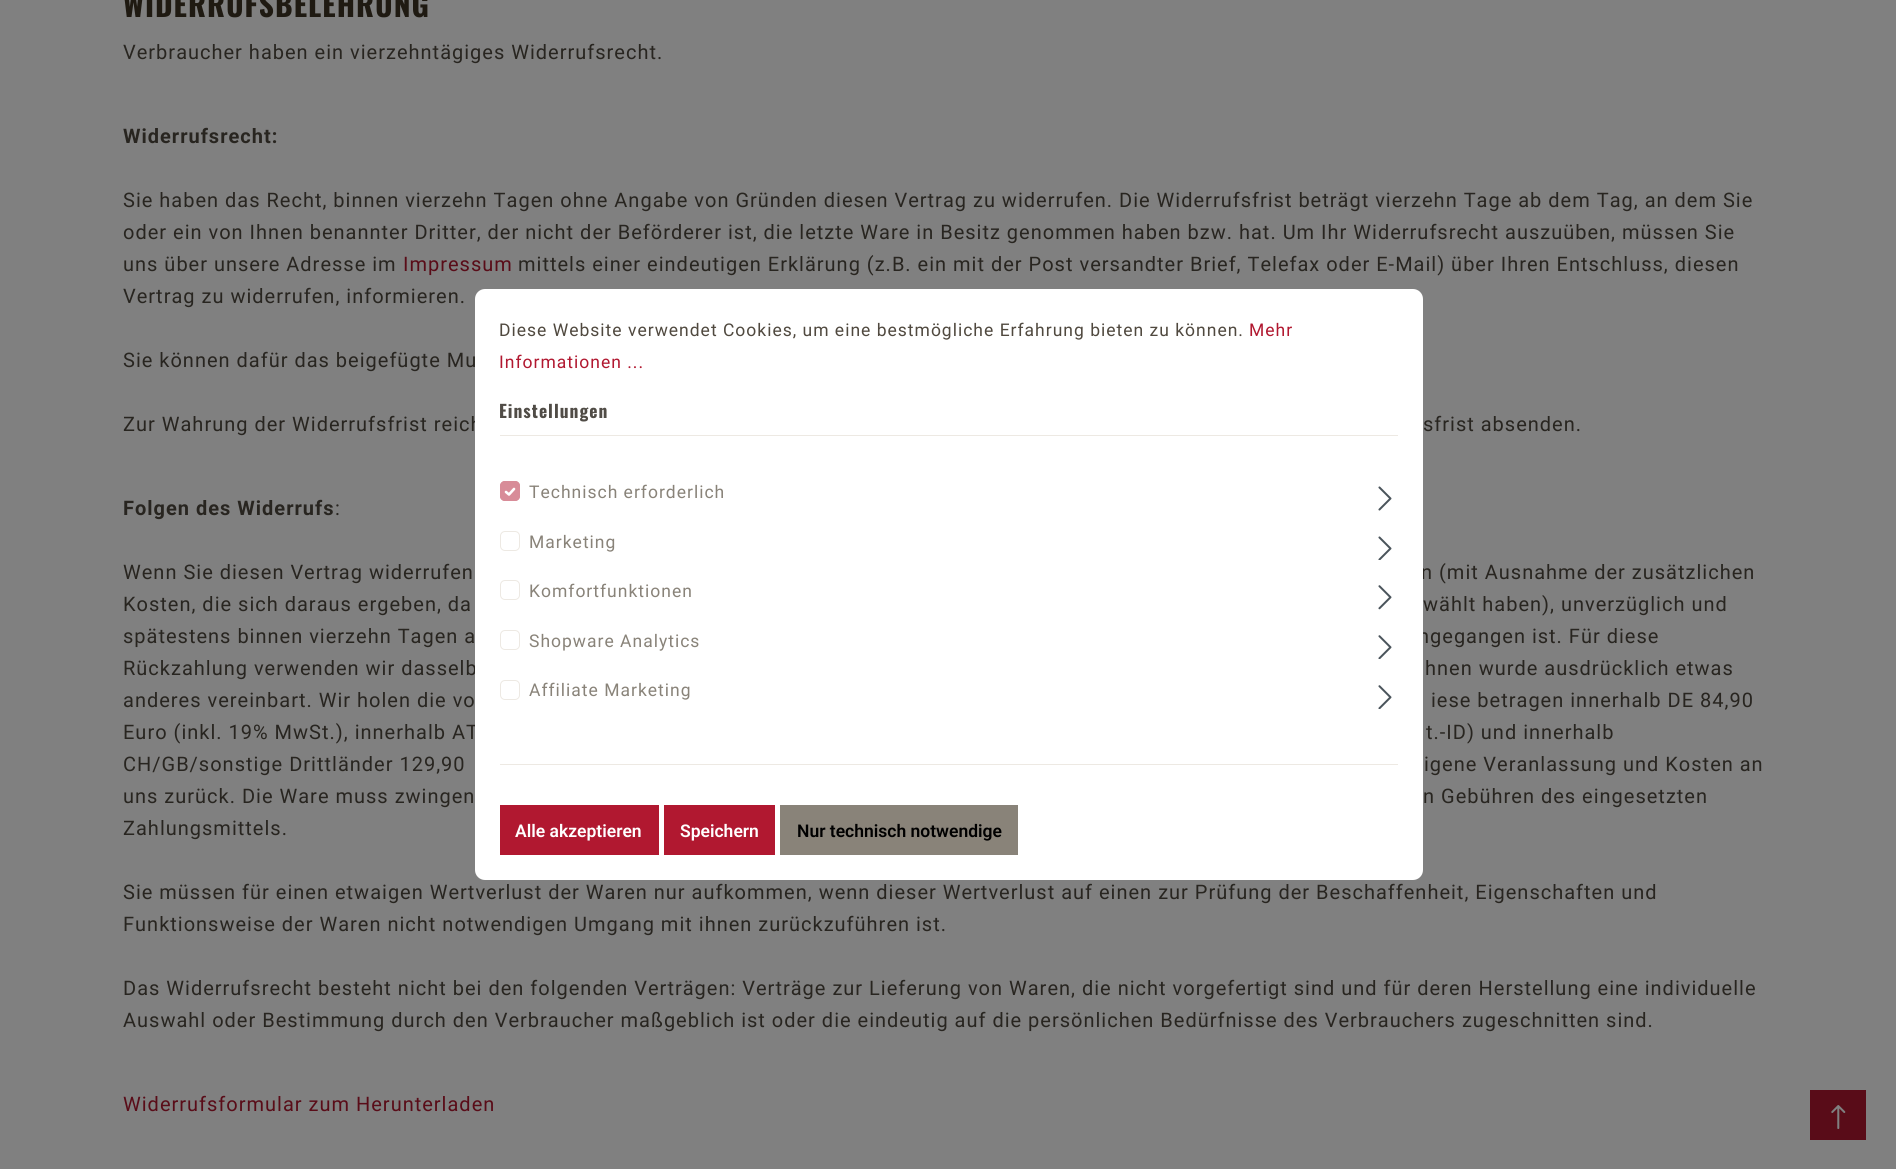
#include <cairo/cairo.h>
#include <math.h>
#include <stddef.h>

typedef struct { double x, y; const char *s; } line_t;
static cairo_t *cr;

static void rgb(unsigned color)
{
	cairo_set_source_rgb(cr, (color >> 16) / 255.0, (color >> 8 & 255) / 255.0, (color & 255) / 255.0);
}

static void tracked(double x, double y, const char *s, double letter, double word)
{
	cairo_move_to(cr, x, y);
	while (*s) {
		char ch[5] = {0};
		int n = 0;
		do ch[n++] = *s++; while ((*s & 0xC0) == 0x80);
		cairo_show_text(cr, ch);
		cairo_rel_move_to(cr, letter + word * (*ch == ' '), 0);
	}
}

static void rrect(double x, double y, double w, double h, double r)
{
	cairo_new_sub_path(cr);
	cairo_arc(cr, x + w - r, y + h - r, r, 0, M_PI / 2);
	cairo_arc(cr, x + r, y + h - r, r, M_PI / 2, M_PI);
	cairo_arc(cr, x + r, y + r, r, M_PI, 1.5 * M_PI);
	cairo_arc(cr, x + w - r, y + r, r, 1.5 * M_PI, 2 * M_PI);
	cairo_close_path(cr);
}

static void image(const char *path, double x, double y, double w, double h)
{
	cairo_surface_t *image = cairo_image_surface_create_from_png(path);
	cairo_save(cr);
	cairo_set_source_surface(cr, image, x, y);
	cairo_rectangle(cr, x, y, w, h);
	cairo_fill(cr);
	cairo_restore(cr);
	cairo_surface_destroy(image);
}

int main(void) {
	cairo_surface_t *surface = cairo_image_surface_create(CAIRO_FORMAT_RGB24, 1896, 1169);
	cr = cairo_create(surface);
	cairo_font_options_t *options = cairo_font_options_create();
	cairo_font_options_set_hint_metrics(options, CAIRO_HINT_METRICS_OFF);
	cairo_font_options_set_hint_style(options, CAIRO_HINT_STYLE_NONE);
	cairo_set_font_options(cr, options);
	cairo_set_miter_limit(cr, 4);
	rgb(0x808080);
	cairo_paint(cr);
	rgb(0x590c18);
	cairo_rectangle(cr, 1810, 1090, 56, 50);
	cairo_fill(cr);
	image("img/5.png", 1831, 1105, 15, 24);
	cairo_select_font_face(cr, "Oswald", CAIRO_FONT_SLANT_NORMAL, CAIRO_FONT_WEIGHT_BOLD);
	cairo_set_font_size(cr, 30);
	rgb(0x1f1a12);
	tracked(123, 17, "WIDERRUFSBELEHRUNG", 1, 0);
	cairo_select_font_face(cr, "Roboto", CAIRO_FONT_SLANT_NORMAL, CAIRO_FONT_WEIGHT_NORMAL);
	cairo_set_font_size(cr, 20);
	rgb(0x282520);
	tracked(123, 59, "Verbraucher haben ein vierzehntägiges Widerrufsrecht.", 1, 0);
	cairo_select_font_face(cr, "Roboto", CAIRO_FONT_SLANT_NORMAL, CAIRO_FONT_WEIGHT_BOLD);
	tracked(123, 143, "Widerrufsrecht:", 1, 0);
	cairo_select_font_face(cr, "Roboto", CAIRO_FONT_SLANT_NORMAL, CAIRO_FONT_WEIGHT_NORMAL);
	{
		static const line_t items[] = {
			{123, 207, "Sie haben das Recht, binnen vierzehn Tagen ohne Angabe von Gründen diesen Vertrag zu widerrufen. Die Widerrufsfrist beträgt vierzehn Tage ab dem Tag, an dem Sie"},
			{123, 239, "oder ein von Ihnen benannter Dritter, der nicht der Beförderer ist, die letzte Ware in Besitz genommen haben bzw. hat. Um Ihr Widerrufsrecht auszuüben, müssen Sie"},
			{123, 271, "uns über unsere Adresse im"},
		};
		for (size_t i = 0; i < sizeof items / sizeof *items; i++) {
			tracked(items[i].x, items[i].y, items[i].s, 1, 0);
		}
	}
	rgb(0x590c18);
	tracked(403, 271, "Impressum", 1, 0);
	rgb(0x282520);
	{
		static const line_t items[] = {
			{518, 271, "mittels einer eindeutigen Erklärung (z.B. ein mit der Post versandter Brief, Telefax oder E-Mail) über Ihren Entschluss, diesen"},
			{123, 303, "Vertrag zu widerrufen, informieren."},
			{123, 367, "Sie können dafür das beigefügte Mu"},
			{123, 431, "Zur Wahrung der Widerrufsfrist reich"},
			{1423, 431, "sfrist absenden."},
		};
		for (size_t i = 0; i < sizeof items / sizeof *items; i++) {
			tracked(items[i].x, items[i].y, items[i].s, 1, 0);
		}
	}
	cairo_select_font_face(cr, "Roboto", CAIRO_FONT_SLANT_NORMAL, CAIRO_FONT_WEIGHT_BOLD);
	tracked(123, 515, "Folgen des Widerrufs", 1, 0);
	cairo_select_font_face(cr, "Roboto", CAIRO_FONT_SLANT_NORMAL, CAIRO_FONT_WEIGHT_NORMAL);
	{
		static const line_t items[] = {
			{335, 515, ":"},
			{123, 579, "Wenn Sie diesen Vertrag widerrufen"},
			{1421, 579, "n (mit Ausnahme der zusätzlichen"},
			{123, 611, "Kosten, die sich daraus ergeben, da"},
			{1423, 611, "wählt haben), unverzüglich und"},
			{123, 643, "spätestens binnen vierzehn Tagen a"},
			{1418, 643, "ngegangen ist. Für diese"},
			{123, 675, "Rückzahlung verwenden wir dasselb"},
			{1425, 675, "hnen wurde ausdrücklich etwas"},
			{123, 707, "anderes vereinbart. Wir holen die vo"},
			{1431, 707, "iese betragen innerhalb DE 84,90"},
			{123, 739, "Euro (inkl. 19% MwSt.), innerhalb AT"},
			{1426, 739, "t.-ID) und innerhalb"},
			{123, 771, "CH/GB/sonstige Drittländer 129,90"},
			{1424, 771, "igene Veranlassung und Kosten an"},
			{123, 803, "uns zurück. Die Ware muss zwingen"},
			{1423, 803, "n Gebühren des eingesetzten"},
			{123, 835, "Zahlungsmittels."},
			{123, 899, "Sie müssen für einen etwaigen Wertverlust der Waren nur aufkommen, wenn dieser Wertverlust auf einen zur Prüfung der Beschaffenheit, Eigenschaften und"},
			{123, 931, "Funktionsweise der Waren nicht notwendigen Umgang mit ihnen zurückzuführen ist."},
			{123, 995, "Das Widerrufsrecht besteht nicht bei den folgenden Verträgen: Verträge zur Lieferung von Waren, die nicht vorgefertigt sind und für deren Herstellung eine individuelle"},
			{123, 1027, "Auswahl oder Bestimmung durch den Verbraucher maßgeblich ist oder die eindeutig auf die persönlichen Bedürfnisse des Verbrauchers zugeschnitten sind."},
		};
		for (size_t i = 0; i < sizeof items / sizeof *items; i++) {
			tracked(items[i].x, items[i].y, items[i].s, 1, 0);
		}
	}
	rgb(0x590c18);
	tracked(123, 1111, "Widerrufsformular zum Herunterladen", 1, 0);
	rgb(0xffffff);
	rrect(475, 289, 948, 591, 10);
	cairo_fill(cr);
	rgb(0xede9e3);
	cairo_rectangle(cr, 500, 435, 898, 1);
	cairo_fill(cr);
	cairo_set_font_size(cr, 17.5);
	rgb(0x50493f);
	tracked(499, 336, "Diese Website verwendet Cookies, um eine bestmögliche Erfahrung bieten zu können.", 1, 0);
	rgb(0xb11830);
	tracked(1249, 336, "Mehr", 1, 0);
	tracked(499, 368, "Informationen ...", 1, 0);
	cairo_select_font_face(cr, "Oswald", CAIRO_FONT_SLANT_NORMAL, CAIRO_FONT_WEIGHT_BOLD);
	rgb(0x504c46);
	tracked(499, 418, "Einstellungen", 1, 0);
	rgb(0xede9e3);
	cairo_rectangle(cr, 500, 764, 898, 1);
	cairo_fill(cr);
	rgb(0xd88c98);
	rrect(500, 481, 20, 20, 5);
	cairo_fill(cr);
	cairo_new_path(cr);
	cairo_move_to(cr, 506, 492);
	cairo_line_to(cr, 509, 494.5);
	cairo_line_to(cr, 514, 489);
	rgb(0xffffff);
	cairo_set_line_width(cr, 2.6);
	cairo_set_line_cap(cr, CAIRO_LINE_CAP_ROUND);
	cairo_set_line_join(cr, CAIRO_LINE_JOIN_ROUND);
	cairo_stroke(cr);
	rrect(500.5, 481.5, 19, 19, 4.5);
	rgb(0xd88c98);
	cairo_set_line_width(cr, 1);
	cairo_set_line_cap(cr, CAIRO_LINE_CAP_BUTT);
	cairo_set_line_join(cr, CAIRO_LINE_JOIN_MITER);
	cairo_stroke(cr);
	cairo_select_font_face(cr, "Roboto", CAIRO_FONT_SLANT_NORMAL, CAIRO_FONT_WEIGHT_NORMAL);
	rgb(0x898379);
	tracked(529, 498, "Technisch erforderlich", 1, 0);
	image("img/1.png", 1378, 486, 14, 25);
	rrect(500.5, 531.5, 19, 19, 4.5);
	rgb(0xede9e3);
	cairo_stroke(cr);
	rgb(0x898379);
	tracked(529, 548, "Marketing", 1, 0);
	image("img/2.png", 1378, 536, 14, 24);
	rrect(500.5, 580.5, 19, 19, 4.5);
	rgb(0xede9e3);
	cairo_stroke(cr);
	rgb(0x898379);
	tracked(529, 597, "Komfortfunktionen", 1, 0);
	image("img/3.png", 1378, 585, 14, 25);
	rrect(500.5, 630.5, 19, 19, 4.5);
	rgb(0xede9e3);
	cairo_stroke(cr);
	rgb(0x898379);
	tracked(529, 647, "Shopware Analytics", 1, 0);
	image("img/4.png", 1378, 635, 14, 24);
	rrect(500.5, 680.5, 19, 19, 4.5);
	rgb(0xede9e3);
	cairo_stroke(cr);
	rgb(0x898379);
	tracked(529, 696, "Affiliate Marketing", 1, 0);
	image("img/4.png", 1378, 685, 14, 24);
	rgb(0xb11830);
	cairo_rectangle(cr, 500, 805, 159, 50);
	cairo_fill(cr);
	cairo_select_font_face(cr, "Roboto SemiBold", CAIRO_FONT_SLANT_NORMAL, CAIRO_FONT_WEIGHT_NORMAL);
	rgb(0xffffff);
	cairo_move_to(cr, 515, 837);
	cairo_show_text(cr, "Alle akzeptieren");
	rgb(0xb11830);
	cairo_rectangle(cr, 664, 805, 111, 50);
	cairo_fill(cr);
	rgb(0xffffff);
	cairo_move_to(cr, 680, 837);
	cairo_show_text(cr, "Speichern");
	rgb(0x898379);
	cairo_rectangle(cr, 780, 805, 238, 50);
	cairo_fill(cr);
	rgb(0x000000);
	cairo_move_to(cr, 797, 837);
	cairo_show_text(cr, "Nur technisch notwendige");
	cairo_surface_write_to_png(surface, "page.png");
	cairo_font_options_destroy(options);
	cairo_destroy(cr);
	cairo_surface_destroy(surface);
	return 0;
}
